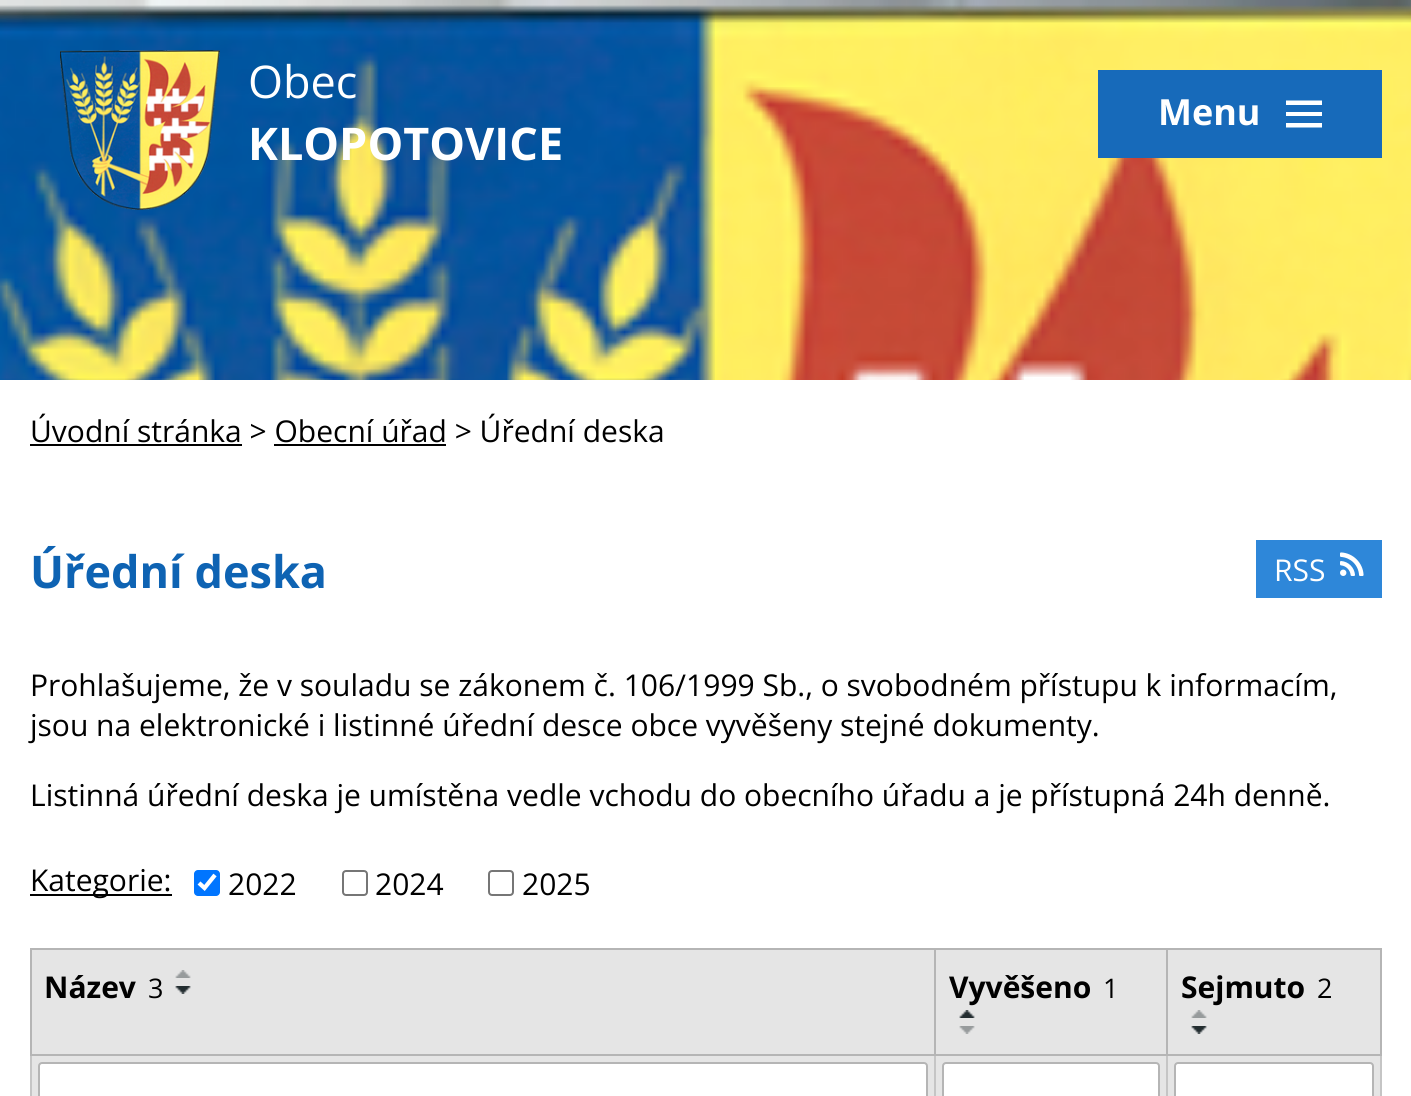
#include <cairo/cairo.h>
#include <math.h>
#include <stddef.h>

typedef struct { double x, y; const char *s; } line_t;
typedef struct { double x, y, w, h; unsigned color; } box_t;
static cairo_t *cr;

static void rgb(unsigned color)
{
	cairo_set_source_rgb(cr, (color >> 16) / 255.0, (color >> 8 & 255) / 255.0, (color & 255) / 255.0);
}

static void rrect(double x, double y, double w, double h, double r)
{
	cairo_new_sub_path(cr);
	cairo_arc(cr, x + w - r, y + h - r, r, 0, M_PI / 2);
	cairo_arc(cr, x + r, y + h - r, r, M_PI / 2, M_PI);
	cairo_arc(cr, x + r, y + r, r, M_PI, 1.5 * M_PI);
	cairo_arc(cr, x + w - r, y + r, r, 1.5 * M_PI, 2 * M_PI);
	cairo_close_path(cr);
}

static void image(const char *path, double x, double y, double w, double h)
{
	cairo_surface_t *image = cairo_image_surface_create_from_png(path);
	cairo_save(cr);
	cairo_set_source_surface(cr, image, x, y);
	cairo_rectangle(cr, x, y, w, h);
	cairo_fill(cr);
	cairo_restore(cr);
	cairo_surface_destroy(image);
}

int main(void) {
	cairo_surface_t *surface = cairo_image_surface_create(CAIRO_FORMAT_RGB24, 1411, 1096);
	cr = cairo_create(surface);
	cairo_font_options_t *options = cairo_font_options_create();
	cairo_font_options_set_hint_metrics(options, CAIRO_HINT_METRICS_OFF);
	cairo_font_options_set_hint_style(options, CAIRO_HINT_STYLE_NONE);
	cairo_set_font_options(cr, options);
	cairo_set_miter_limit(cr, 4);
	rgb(0xffffff);
	cairo_paint(cr);
	image("img/1.png", 0, 0, 1411, 380);
	image("img/2.png", 60, 50, 160, 160);
	rgb(0x176aba);
	cairo_rectangle(cr, 1098, 70, 284, 88);
	cairo_fill(cr);
	rgb(0xffffff);
	cairo_new_path(cr);
	cairo_move_to(cr, 1286, 127.5);
	cairo_line_to(cr, 1286, 123);
	cairo_line_to(cr, 1322, 123);
	cairo_line_to(cr, 1322, 127.5);
	cairo_close_path(cr);
	cairo_move_to(cr, 1286, 100.5);
	cairo_line_to(cr, 1322, 100.5);
	cairo_line_to(cr, 1322, 105);
	cairo_line_to(cr, 1286, 105);
	cairo_close_path(cr);
	cairo_move_to(cr, 1286, 116);
	cairo_line_to(cr, 1286, 112);
	cairo_line_to(cr, 1322, 112);
	cairo_line_to(cr, 1322, 116);
	cairo_close_path(cr);
	cairo_fill(cr);
	{
		static const box_t items[] = {
			{30, 444, 212, 2, 0x000000},
			{274, 444, 172, 2, 0x000000},
			{1256, 540, 126, 58, 0x2e87d9},
		};
		for (size_t i = 0; i < sizeof items / sizeof *items; i++) {
			rgb(items[i].color);
			cairo_rectangle(cr, items[i].x, items[i].y, items[i].w, items[i].h);
			cairo_fill(cr);
		}
	}
	image("img/3.png", 1340, 552, 24, 24);
	rgb(0x000000);
	cairo_rectangle(cr, 30, 894, 142, 2);
	cairo_fill(cr);
	rgb(0x0075ff);
	rrect(194, 870, 26, 26, 4);
	cairo_fill(cr);
	cairo_new_path(cr);
	cairo_move_to(cr, 199, 883);
	cairo_line_to(cr, 204.5, 888);
	cairo_line_to(cr, 215, 875);
	rgb(0xffffff);
	cairo_set_line_width(cr, 4.2);
	cairo_stroke(cr);
	rrect(343, 871, 24, 24, 3);
	rgb(0x767676);
	cairo_set_line_width(cr, 2);
	cairo_stroke(cr);
	rrect(489, 871, 24, 24, 3);
	cairo_stroke(cr);
	{
		static const box_t items[] = {
			{32, 950, 902, 104, 0xe5e5e5},
			{1166, 948, 216, 2, 0xb5b5b5},
			{1380, 1054, 2, 42, 0xc5c5c5},
			{1380, 948, 2, 108, 0xb5b5b5},
			{32, 1056, 1348, 40, 0xe5e5e5},
			{1166, 1054, 2, 42, 0xc5c5c5},
			{1166, 1054, 216, 2, 0xb5b5b5},
			{1166, 948, 2, 108, 0xb5b5b5},
			{934, 948, 234, 2, 0xb5b5b5},
			{934, 1054, 2, 42, 0xc5c5c5},
			{934, 1054, 234, 2, 0xb5b5b5},
			{934, 948, 2, 108, 0xb5b5b5},
			{30, 948, 906, 2, 0xb5b5b5},
			{30, 1054, 2, 42, 0xc5c5c5},
			{30, 1054, 906, 2, 0xb5b5b5},
			{30, 948, 2, 108, 0xb5b5b5},
		};
		for (size_t i = 0; i < sizeof items / sizeof *items; i++) {
			rgb(items[i].color);
			cairo_rectangle(cr, items[i].x, items[i].y, items[i].w, items[i].h);
			cairo_fill(cr);
		}
	}
	image("img/4.png", 175, 970, 16, 8);
	image("img/5.png", 175, 986, 16, 8);
	rgb(0xe5e5e5);
	cairo_rectangle(cr, 936, 950, 230, 104);
	cairo_fill(cr);
	image("img/6.png", 959, 1010, 16, 8);
	image("img/7.png", 959, 1026, 16, 8);
	cairo_rectangle(cr, 1168, 950, 212, 104);
	cairo_fill(cr);
	image("img/4.png", 1191, 1010, 16, 8);
	image("img/5.png", 1191, 1026, 16, 8);
	rgb(0xffffff);
	rrect(39, 1063, 888, 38, 3);
	cairo_fill_preserve(cr);
	rgb(0xb5b5b5);
	cairo_stroke(cr);
	rgb(0xffffff);
	rrect(943, 1063, 216, 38, 3);
	cairo_fill_preserve(cr);
	rgb(0xb5b5b5);
	cairo_stroke(cr);
	rgb(0xffffff);
	rrect(1175, 1063, 198, 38, 3);
	cairo_fill_preserve(cr);
	rgb(0xb5b5b5);
	cairo_stroke(cr);
	cairo_select_font_face(cr, "Open Sans", CAIRO_FONT_SLANT_NORMAL, CAIRO_FONT_WEIGHT_NORMAL);
	cairo_set_font_size(cr, 45);
	rgb(0xffffff);
	cairo_move_to(cr, 248, 98);
	cairo_show_text(cr, "Obec");
	cairo_select_font_face(cr, "Open Sans", CAIRO_FONT_SLANT_NORMAL, CAIRO_FONT_WEIGHT_BOLD);
	cairo_move_to(cr, 248, 160);
	cairo_show_text(cr, "KLOPOTOVICE");
	cairo_set_font_size(cr, 36);
	cairo_move_to(cr, 1158, 125);
	cairo_show_text(cr, "Menu");
	cairo_select_font_face(cr, "Open Sans", CAIRO_FONT_SLANT_NORMAL, CAIRO_FONT_WEIGHT_NORMAL);
	cairo_set_font_size(cr, 30);
	rgb(0x000000);
	cairo_move_to(cr, 30, 442);
	cairo_show_text(cr, "Úvodní stránka > Obecní úřad > Úřední deska");
	cairo_select_font_face(cr, "Open Sans", CAIRO_FONT_SLANT_NORMAL, CAIRO_FONT_WEIGHT_BOLD);
	cairo_set_font_size(cr, 45);
	rgb(0x0e63b3);
	cairo_move_to(cr, 30, 588);
	cairo_show_text(cr, "Úřední deska");
	cairo_select_font_face(cr, "Open Sans", CAIRO_FONT_SLANT_NORMAL, CAIRO_FONT_WEIGHT_NORMAL);
	cairo_set_font_size(cr, 30);
	rgb(0xffffff);
	cairo_move_to(cr, 1274, 581);
	cairo_show_text(cr, "RSS");
	rgb(0x000000);
	{
		static const line_t items[] = {
			{30, 696, "Prohlašujeme, že v souladu se zákonem č. 106/1999 Sb., o svobodném přístupu k informacím,"},
			{30, 736, "jsou na elektronické i listinné úřední desce obce vyvěšeny stejné dokumenty."},
			{30, 806, "Listinná úřední deska je umístěna vedle vchodu do obecního úřadu a je přístupná 24h denně."},
			{30, 891, "Kategorie:"},
			{228, 895, "2022"},
			{375, 895, "2024"},
			{522, 895, "2025"},
		};
		for (size_t i = 0; i < sizeof items / sizeof *items; i++) {
			cairo_move_to(cr, items[i].x, items[i].y);
			cairo_show_text(cr, items[i].s);
		}
	}
	cairo_select_font_face(cr, "Open Sans", CAIRO_FONT_SLANT_NORMAL, CAIRO_FONT_WEIGHT_BOLD);
	cairo_move_to(cr, 44, 998);
	cairo_show_text(cr, "Název");
	cairo_select_font_face(cr, "Open Sans", CAIRO_FONT_SLANT_NORMAL, CAIRO_FONT_WEIGHT_NORMAL);
	cairo_set_font_size(cr, 27);
	cairo_move_to(cr, 148, 998);
	cairo_show_text(cr, "3");
	cairo_select_font_face(cr, "Open Sans", CAIRO_FONT_SLANT_NORMAL, CAIRO_FONT_WEIGHT_BOLD);
	cairo_set_font_size(cr, 30);
	cairo_move_to(cr, 949, 998);
	cairo_show_text(cr, "Vyvěšeno");
	cairo_select_font_face(cr, "Open Sans", CAIRO_FONT_SLANT_NORMAL, CAIRO_FONT_WEIGHT_NORMAL);
	cairo_set_font_size(cr, 27);
	cairo_move_to(cr, 1103, 998);
	cairo_show_text(cr, "1");
	cairo_select_font_face(cr, "Open Sans", CAIRO_FONT_SLANT_NORMAL, CAIRO_FONT_WEIGHT_BOLD);
	cairo_set_font_size(cr, 30);
	cairo_move_to(cr, 1181, 998);
	cairo_show_text(cr, "Sejmuto");
	cairo_select_font_face(cr, "Open Sans", CAIRO_FONT_SLANT_NORMAL, CAIRO_FONT_WEIGHT_NORMAL);
	cairo_set_font_size(cr, 27);
	cairo_move_to(cr, 1317, 998);
	cairo_show_text(cr, "2");
	cairo_surface_write_to_png(surface, "page.png");
	cairo_font_options_destroy(options);
	cairo_destroy(cr);
	cairo_surface_destroy(surface);
	return 0;
}
